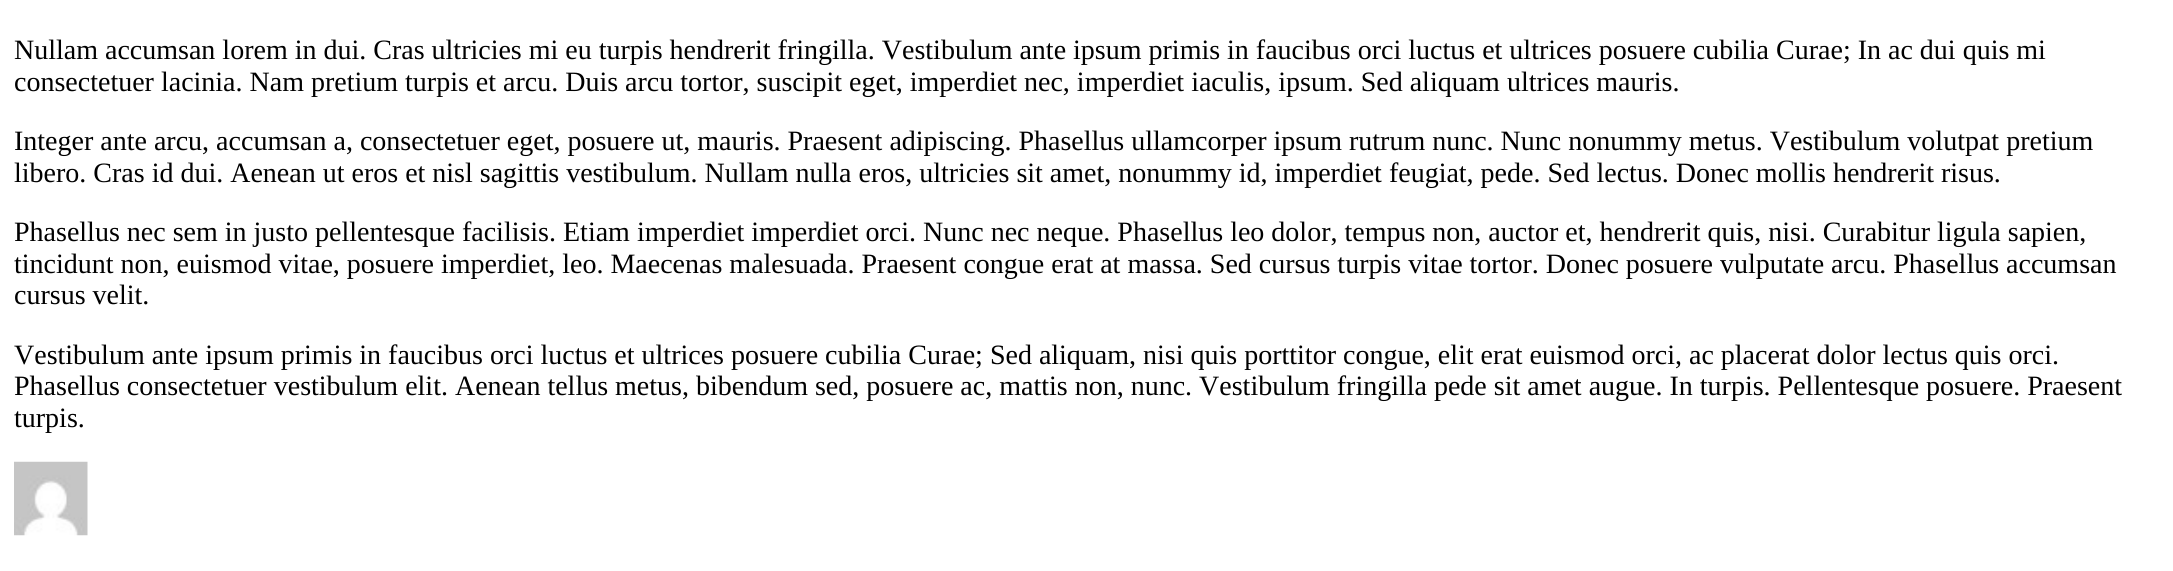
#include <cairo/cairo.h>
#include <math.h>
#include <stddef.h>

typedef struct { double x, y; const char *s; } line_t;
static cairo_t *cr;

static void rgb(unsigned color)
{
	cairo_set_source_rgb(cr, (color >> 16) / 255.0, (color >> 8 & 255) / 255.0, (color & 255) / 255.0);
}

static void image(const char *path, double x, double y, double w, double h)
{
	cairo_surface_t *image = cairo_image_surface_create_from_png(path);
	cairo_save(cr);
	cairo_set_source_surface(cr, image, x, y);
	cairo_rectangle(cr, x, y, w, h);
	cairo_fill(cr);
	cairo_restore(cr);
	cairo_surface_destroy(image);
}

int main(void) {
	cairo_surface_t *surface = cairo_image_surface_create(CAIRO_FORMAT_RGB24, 2173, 571);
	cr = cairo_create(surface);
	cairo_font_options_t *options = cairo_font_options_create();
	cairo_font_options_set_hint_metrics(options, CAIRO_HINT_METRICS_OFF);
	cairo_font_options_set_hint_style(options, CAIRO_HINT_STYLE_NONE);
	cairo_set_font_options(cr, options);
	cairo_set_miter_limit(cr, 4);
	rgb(0xffffff);
	cairo_paint(cr);
	image("img/1.png", 14, 461, 74, 75);
	cairo_select_font_face(cr, "Liberation Serif", CAIRO_FONT_SLANT_NORMAL, CAIRO_FONT_WEIGHT_NORMAL);
	cairo_set_font_size(cr, 28);
	rgb(0x000000);
	{
		static const line_t items[] = {
			{14, 59, "Nullam accumsan lorem in dui. Cras ultricies mi eu turpis hendrerit fringilla. Vestibulum ante ipsum primis in faucibus orci luctus et ultrices posuere cubilia Curae; In ac dui quis mi"},
			{14, 91, "consectetuer lacinia. Nam pretium turpis et arcu. Duis arcu tortor, suscipit eget, imperdiet nec, imperdiet iaculis, ipsum. Sed aliquam ultrices mauris."},
			{14, 150, "Integer ante arcu, accumsan a, consectetuer eget, posuere ut, mauris. Praesent adipiscing. Phasellus ullamcorper ipsum rutrum nunc. Nunc nonummy metus. Vestibulum volutpat pretium"},
			{14, 182, "libero. Cras id dui. Aenean ut eros et nisl sagittis vestibulum. Nullam nulla eros, ultricies sit amet, nonummy id, imperdiet feugiat, pede. Sed lectus. Donec mollis hendrerit risus."},
			{14, 241, "Phasellus nec sem in justo pellentesque facilisis. Etiam imperdiet imperdiet orci. Nunc nec neque. Phasellus leo dolor, tempus non, auctor et, hendrerit quis, nisi. Curabitur ligula sapien,"},
			{14, 273, "tincidunt non, euismod vitae, posuere imperdiet, leo. Maecenas malesuada. Praesent congue erat at massa. Sed cursus turpis vitae tortor. Donec posuere vulputate arcu. Phasellus accumsan"},
			{14, 304, "cursus velit."},
			{14, 364, "Vestibulum ante ipsum primis in faucibus orci luctus et ultrices posuere cubilia Curae; Sed aliquam, nisi quis porttitor congue, elit erat euismod orci, ac placerat dolor lectus quis orci."},
			{14, 395, "Phasellus consectetuer vestibulum elit. Aenean tellus metus, bibendum sed, posuere ac, mattis non, nunc. Vestibulum fringilla pede sit amet augue. In turpis. Pellentesque posuere. Praesent"},
			{14, 427, "turpis."},
		};
		for (size_t i = 0; i < sizeof items / sizeof *items; i++) {
			cairo_move_to(cr, items[i].x, items[i].y);
			cairo_show_text(cr, items[i].s);
		}
	}
	cairo_surface_write_to_png(surface, "page.png");
	cairo_font_options_destroy(options);
	cairo_destroy(cr);
	cairo_surface_destroy(surface);
	return 0;
}
